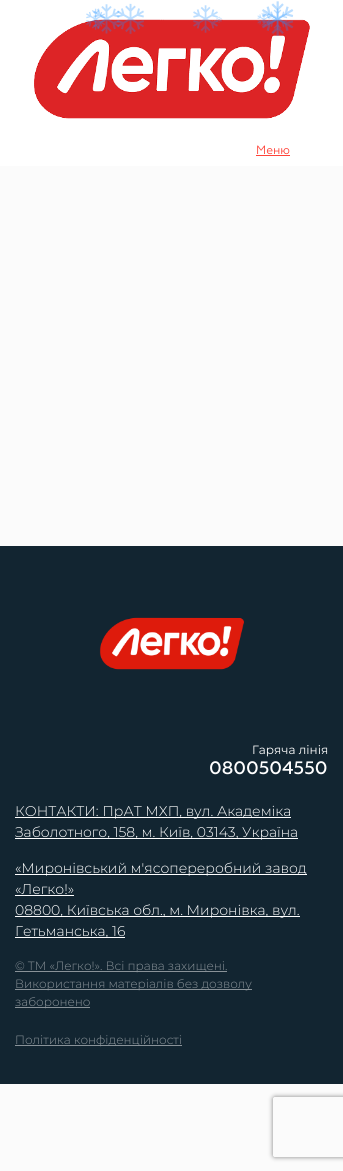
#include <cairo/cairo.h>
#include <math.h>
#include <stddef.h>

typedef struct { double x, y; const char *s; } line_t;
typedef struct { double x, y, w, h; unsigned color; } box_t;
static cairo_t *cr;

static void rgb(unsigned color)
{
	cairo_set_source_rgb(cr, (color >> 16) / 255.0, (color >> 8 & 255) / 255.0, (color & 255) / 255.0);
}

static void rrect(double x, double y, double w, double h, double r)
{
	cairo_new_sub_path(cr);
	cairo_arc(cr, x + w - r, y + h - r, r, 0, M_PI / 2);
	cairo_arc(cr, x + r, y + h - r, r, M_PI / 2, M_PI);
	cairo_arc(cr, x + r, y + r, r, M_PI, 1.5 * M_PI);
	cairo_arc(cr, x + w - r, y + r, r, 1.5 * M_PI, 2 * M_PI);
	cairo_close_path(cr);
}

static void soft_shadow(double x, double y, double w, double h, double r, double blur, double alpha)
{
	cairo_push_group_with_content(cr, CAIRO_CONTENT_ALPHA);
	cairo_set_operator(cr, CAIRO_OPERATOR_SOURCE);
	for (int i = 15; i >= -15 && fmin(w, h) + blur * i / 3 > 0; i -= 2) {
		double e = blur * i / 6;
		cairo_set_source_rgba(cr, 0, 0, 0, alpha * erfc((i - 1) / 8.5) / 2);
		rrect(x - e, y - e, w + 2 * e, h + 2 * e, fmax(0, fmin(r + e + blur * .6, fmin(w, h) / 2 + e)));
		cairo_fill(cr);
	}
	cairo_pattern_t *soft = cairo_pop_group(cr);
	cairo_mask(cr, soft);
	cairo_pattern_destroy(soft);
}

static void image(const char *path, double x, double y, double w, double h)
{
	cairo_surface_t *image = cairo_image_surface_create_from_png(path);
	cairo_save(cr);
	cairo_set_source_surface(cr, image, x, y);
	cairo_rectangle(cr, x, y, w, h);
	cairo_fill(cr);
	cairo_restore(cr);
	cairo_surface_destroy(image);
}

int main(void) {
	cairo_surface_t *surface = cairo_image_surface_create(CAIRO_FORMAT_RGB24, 343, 1171);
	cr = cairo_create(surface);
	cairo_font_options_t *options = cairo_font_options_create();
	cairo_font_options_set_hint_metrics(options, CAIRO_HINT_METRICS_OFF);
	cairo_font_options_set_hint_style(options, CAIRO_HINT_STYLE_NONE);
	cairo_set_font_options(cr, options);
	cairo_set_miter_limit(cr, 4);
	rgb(0xfbfbfb);
	cairo_paint(cr);
	rgb(0xffffff);
	cairo_rectangle(cr, 0, 0, 343, 166);
	cairo_fill(cr);
	image("img/10.png", 34, 19, 276, 100);
	image("img/2.png", 117, 3, 27, 31);
	image("img/5.png", 86, 8, 19, 22);
	image("img/1.png", 93, 4, 27, 30);
	image("img/6.png", 216, 16, 6, 7);
	image("img/3.png", 193, 5, 25, 28);
	image("img/8.png", 267, 8, 21, 22);
	image("img/7.png", 257, 12, 14, 15);
	image("img/9.png", 271, 17, 6, 6);
	image("img/4.png", 262, 1, 32, 35);
	rgb(0xff4339);
	cairo_rectangle(cr, 256, 155, 34, 1);
	cairo_fill(cr);
	rgb(0x122531);
	cairo_rectangle(cr, 0, 546, 343, 538);
	cairo_fill(cr);
	image("img/11.png", 99, 617, 145, 53);
	{
		static const box_t items[] = {
			{15, 817, 276, 1, 0xffffff},
			{15, 838, 283, 1, 0xffffff},
			{15, 874, 292, 1, 0xffffff},
			{15, 895, 59, 1, 0xffffff},
			{15, 916, 285, 1, 0xffffff},
			{15, 937, 110, 1, 0xffffff},
			{15, 971, 212, 1, 0x899298},
			{15, 989, 237, 1, 0x899298},
			{15, 1007, 75, 1, 0x899298},
			{15, 1045, 167, 1, 0x899298},
		};
		for (size_t i = 0; i < sizeof items / sizeof *items; i++) {
			rgb(items[i].color);
			cairo_rectangle(cr, items[i].x, items[i].y, items[i].w, items[i].h);
			cairo_fill(cr);
		}
	}
	cairo_save(cr);
	cairo_set_fill_rule(cr, CAIRO_FILL_RULE_EVEN_ODD);
	cairo_new_path(cr);
	cairo_move_to(cr, 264, 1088);
	cairo_line_to(cr, 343, 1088);
	cairo_line_to(cr, 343, 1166);
	cairo_line_to(cr, 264, 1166);
	cairo_close_path(cr);
	cairo_move_to(cr, 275, 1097);
	cairo_line_to(cr, 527, 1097);
	cairo_curve_to(cr, 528, 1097, 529, 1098, 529, 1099);
	cairo_line_to(cr, 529, 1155);
	cairo_curve_to(cr, 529, 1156, 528, 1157, 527, 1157);
	cairo_line_to(cr, 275, 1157);
	cairo_curve_to(cr, 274, 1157, 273, 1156, 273, 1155);
	cairo_line_to(cr, 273, 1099);
	cairo_curve_to(cr, 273, 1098, 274, 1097, 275, 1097);
	cairo_close_path(cr);
	cairo_clip(cr);
	rgb(0x808080);
	soft_shadow(273, 1097, 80, 60, 2, 2.5, 1);
	cairo_restore(cr);
	cairo_select_font_face(cr, "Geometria", CAIRO_FONT_SLANT_NORMAL, CAIRO_FONT_WEIGHT_NORMAL);
	cairo_set_font_size(cr, 12);
	rgb(0xff4339);
	cairo_move_to(cr, 256, 154);
	cairo_show_text(cr, "Меню");
	cairo_select_font_face(cr, "Montserrat", CAIRO_FONT_SLANT_NORMAL, CAIRO_FONT_WEIGHT_NORMAL);
	rgb(0xffffff);
	cairo_move_to(cr, 252, 754);
	cairo_show_text(cr, "Гаряча лінія");
	cairo_select_font_face(cr, "Geometria Medium", CAIRO_FONT_SLANT_NORMAL, CAIRO_FONT_WEIGHT_NORMAL);
	cairo_set_font_size(cr, 18);
	cairo_move_to(cr, 209, 774);
	cairo_show_text(cr, "0800504550");
	cairo_select_font_face(cr, "Montserrat Light", CAIRO_FONT_SLANT_NORMAL, CAIRO_FONT_WEIGHT_NORMAL);
	cairo_set_font_size(cr, 14);
	{
		static const line_t items[] = {
			{15, 816, "КОНТАКТИ: ПрАТ МХП, вул. Академіка"},
			{15, 837, "Заболотного, 158, м. Київ, 03143, Україна"},
			{15, 873, "«Миронівський м'ясопереробний завод"},
			{15, 894, "«Легко!»"},
			{15, 915, "08800, Київська обл., м. Миронівка, вул."},
			{15, 936, "Гетьманська, 16"},
		};
		for (size_t i = 0; i < sizeof items / sizeof *items; i++) {
			cairo_move_to(cr, items[i].x, items[i].y);
			cairo_show_text(cr, items[i].s);
		}
	}
	cairo_set_font_size(cr, 12);
	rgb(0x899298);
	{
		static const line_t items[] = {
			{15, 970, "© ТМ «Легко!». Всі права захищені."},
			{15, 988, "Використання матеріалів без дозволу"},
			{15, 1006, "заборонено"},
			{15, 1044, "Політика конфіденційності"},
		};
		for (size_t i = 0; i < sizeof items / sizeof *items; i++) {
			cairo_move_to(cr, items[i].x, items[i].y);
			cairo_show_text(cr, items[i].s);
		}
	}
	cairo_surface_write_to_png(surface, "page.png");
	cairo_font_options_destroy(options);
	cairo_destroy(cr);
	cairo_surface_destroy(surface);
	return 0;
}
